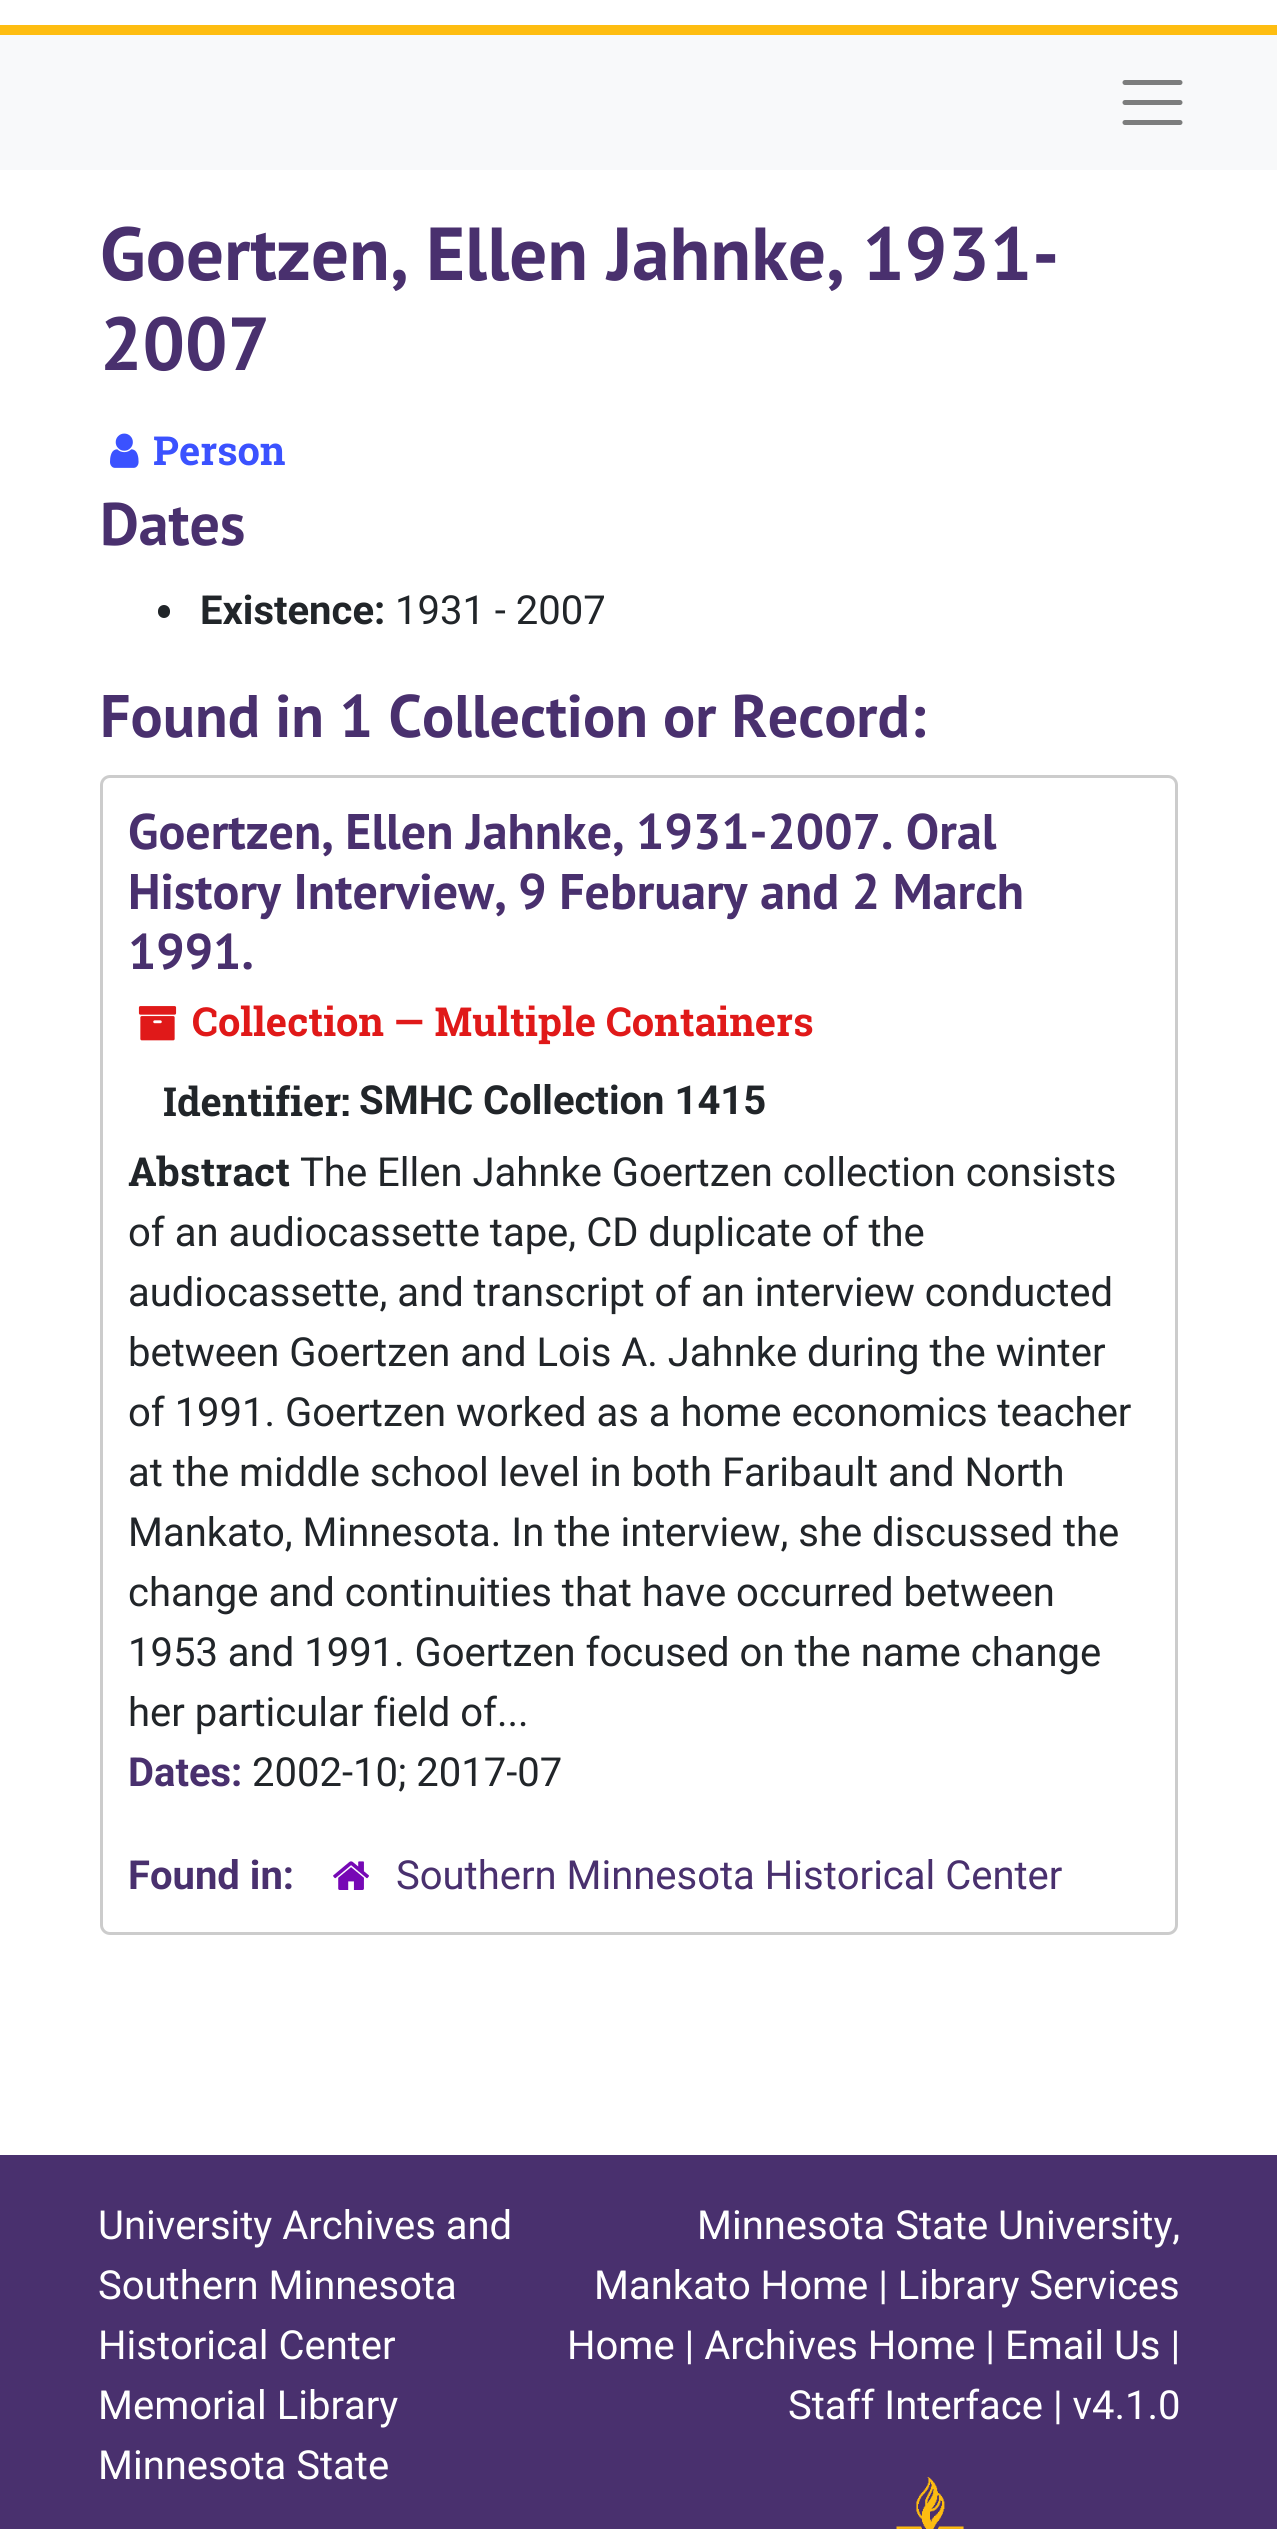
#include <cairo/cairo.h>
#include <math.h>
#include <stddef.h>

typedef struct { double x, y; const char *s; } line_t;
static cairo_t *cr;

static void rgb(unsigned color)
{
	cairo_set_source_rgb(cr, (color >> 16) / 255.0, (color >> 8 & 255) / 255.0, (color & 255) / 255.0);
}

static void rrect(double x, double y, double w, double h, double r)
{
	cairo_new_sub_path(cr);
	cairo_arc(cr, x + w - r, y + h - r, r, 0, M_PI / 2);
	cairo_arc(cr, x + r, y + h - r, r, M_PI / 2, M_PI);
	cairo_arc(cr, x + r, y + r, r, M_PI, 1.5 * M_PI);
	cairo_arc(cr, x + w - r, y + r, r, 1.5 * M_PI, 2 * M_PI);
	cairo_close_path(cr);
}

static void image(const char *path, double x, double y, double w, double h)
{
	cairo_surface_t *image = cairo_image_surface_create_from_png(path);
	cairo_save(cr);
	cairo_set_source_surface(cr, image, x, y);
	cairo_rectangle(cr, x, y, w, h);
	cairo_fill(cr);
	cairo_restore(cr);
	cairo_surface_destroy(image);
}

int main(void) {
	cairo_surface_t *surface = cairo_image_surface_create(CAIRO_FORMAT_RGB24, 1277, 2529);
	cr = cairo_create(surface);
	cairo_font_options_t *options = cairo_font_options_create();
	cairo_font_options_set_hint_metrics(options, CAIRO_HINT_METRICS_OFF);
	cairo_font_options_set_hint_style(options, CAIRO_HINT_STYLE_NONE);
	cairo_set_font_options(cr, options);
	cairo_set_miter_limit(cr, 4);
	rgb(0xffffff);
	cairo_paint(cr);
	rgb(0xfebd11);
	cairo_rectangle(cr, 0, 25, 1277, 10);
	cairo_fill(cr);
	rgb(0xf8f9fa);
	cairo_rectangle(cr, 0, 35, 1277, 135);
	cairo_fill(cr);
	cairo_new_path(cr);
	cairo_move_to(cr, 1125, 82.5);
	cairo_line_to(cr, 1180, 82.5);
	cairo_move_to(cr, 1125, 102.5);
	cairo_line_to(cr, 1180, 102.5);
	cairo_move_to(cr, 1125, 122.5);
	cairo_line_to(cr, 1180, 122.5);
	rgb(0x7c7d7d);
	cairo_set_line_width(cr, 5);
	cairo_set_line_cap(cr, CAIRO_LINE_CAP_ROUND);
	cairo_stroke(cr);
	image("img/1.png", 110, 433, 29, 35);
	rgb(0x212529);
	rrect(158, 605, 12, 13, 6);
	cairo_fill(cr);
	rrect(101.5, 776.5, 1075, 1157, 8.5);
	rgb(0xcccccc);
	cairo_set_line_width(cr, 3);
	cairo_set_line_cap(cr, CAIRO_LINE_CAP_BUTT);
	cairo_stroke(cr);
	image("img/2.png", 138, 1006, 39, 35);
	image("img/3.png", 333, 1861, 36, 29);
	rgb(0x49306e);
	cairo_rectangle(cr, 0, 2155, 1277, 374);
	cairo_fill(cr);
	image("img/4.png", 896, 2477, 68, 52);
	cairo_select_font_face(cr, "PT Sans", CAIRO_FONT_SLANT_NORMAL, CAIRO_FONT_WEIGHT_BOLD);
	cairo_set_font_size(cr, 75);
	cairo_move_to(cr, 100, 280);
	cairo_show_text(cr, "Goertzen, Ellen Jahnke, 1931-");
	cairo_move_to(cr, 100, 370);
	cairo_show_text(cr, "2007");
	cairo_select_font_face(cr, "Roboto Slab", CAIRO_FONT_SLANT_NORMAL, CAIRO_FONT_WEIGHT_BOLD);
	cairo_set_font_size(cr, 40);
	rgb(0x3b52ff);
	cairo_move_to(cr, 153, 465);
	cairo_show_text(cr, "Person");
	cairo_select_font_face(cr, "PT Sans", CAIRO_FONT_SLANT_NORMAL, CAIRO_FONT_WEIGHT_BOLD);
	cairo_set_font_size(cr, 60);
	rgb(0x49306e);
	cairo_move_to(cr, 100, 545);
	cairo_show_text(cr, "Dates");
	cairo_select_font_face(cr, "Roboto", CAIRO_FONT_SLANT_NORMAL, CAIRO_FONT_WEIGHT_BOLD);
	cairo_set_font_size(cr, 40);
	rgb(0x212529);
	cairo_move_to(cr, 200, 624);
	cairo_show_text(cr, "Existence:");
	cairo_select_font_face(cr, "Roboto", CAIRO_FONT_SLANT_NORMAL, CAIRO_FONT_WEIGHT_NORMAL);
	cairo_move_to(cr, 395, 624);
	cairo_show_text(cr, "1931 - 2007");
	cairo_select_font_face(cr, "PT Sans", CAIRO_FONT_SLANT_NORMAL, CAIRO_FONT_WEIGHT_BOLD);
	cairo_set_font_size(cr, 60);
	rgb(0x49306e);
	cairo_move_to(cr, 100, 737);
	cairo_show_text(cr, "Found in 1 Collection or Record:");
	cairo_set_font_size(cr, 50);
	{
		static const line_t items[] = {
			{128, 849, "Goertzen, Ellen Jahnke, 1931-2007. Oral"},
			{128, 909, "History Interview, 9 February and 2 March"},
			{128, 969, "1991."},
		};
		for (size_t i = 0; i < sizeof items / sizeof *items; i++) {
			cairo_move_to(cr, items[i].x, items[i].y);
			cairo_show_text(cr, items[i].s);
		}
	}
	cairo_select_font_face(cr, "Roboto Slab", CAIRO_FONT_SLANT_NORMAL, CAIRO_FONT_WEIGHT_BOLD);
	cairo_set_font_size(cr, 40);
	rgb(0xe01919);
	cairo_move_to(cr, 192, 1036);
	cairo_show_text(cr, "Collection — Multiple Containers");
	rgb(0x212529);
	cairo_move_to(cr, 163, 1116);
	cairo_show_text(cr, "Identifier:");
	cairo_select_font_face(cr, "Roboto", CAIRO_FONT_SLANT_NORMAL, CAIRO_FONT_WEIGHT_BOLD);
	cairo_move_to(cr, 359, 1114);
	cairo_show_text(cr, "SMHC Collection 1415");
	cairo_select_font_face(cr, "Roboto Slab", CAIRO_FONT_SLANT_NORMAL, CAIRO_FONT_WEIGHT_BOLD);
	cairo_move_to(cr, 128, 1186);
	cairo_show_text(cr, "Abstract");
	cairo_select_font_face(cr, "Roboto", CAIRO_FONT_SLANT_NORMAL, CAIRO_FONT_WEIGHT_NORMAL);
	{
		static const line_t items[] = {
			{300, 1186, "The Ellen Jahnke Goertzen collection consists"},
			{128, 1246, "of an audiocassette tape, CD duplicate of the"},
			{128, 1306, "audiocassette, and transcript of an interview conducted"},
			{128, 1366, "between Goertzen and Lois A. Jahnke during the winter"},
			{128, 1426, "of 1991. Goertzen worked as a home economics teacher"},
			{128, 1486, "at the middle school level in both Faribault and North"},
			{128, 1546, "Mankato, Minnesota. In the interview, she discussed the"},
			{128, 1606, "change and continuities that have occurred between"},
			{128, 1666, "1953 and 1991. Goertzen focused on the name change"},
			{128, 1726, "her particular field of..."},
		};
		for (size_t i = 0; i < sizeof items / sizeof *items; i++) {
			cairo_move_to(cr, items[i].x, items[i].y);
			cairo_show_text(cr, items[i].s);
		}
	}
	cairo_select_font_face(cr, "Roboto", CAIRO_FONT_SLANT_NORMAL, CAIRO_FONT_WEIGHT_BOLD);
	rgb(0x49306e);
	cairo_move_to(cr, 128, 1786);
	cairo_show_text(cr, "Dates:");
	cairo_select_font_face(cr, "Roboto", CAIRO_FONT_SLANT_NORMAL, CAIRO_FONT_WEIGHT_NORMAL);
	rgb(0x212529);
	cairo_move_to(cr, 252, 1786);
	cairo_show_text(cr, "2002-10; 2017-07");
	cairo_select_font_face(cr, "Roboto", CAIRO_FONT_SLANT_NORMAL, CAIRO_FONT_WEIGHT_BOLD);
	rgb(0x49306e);
	cairo_move_to(cr, 128, 1889);
	cairo_show_text(cr, "Found in:");
	cairo_select_font_face(cr, "Roboto", CAIRO_FONT_SLANT_NORMAL, CAIRO_FONT_WEIGHT_NORMAL);
	cairo_move_to(cr, 396, 1889);
	cairo_show_text(cr, "Southern Minnesota Historical Center");
	rgb(0xffffff);
	{
		static const line_t items[] = {
			{98, 2239, "University Archives and"},
			{98, 2299, "Southern Minnesota"},
			{98, 2359, "Historical Center"},
			{98, 2419, "Memorial Library"},
			{98, 2479, "Minnesota State"},
			{697, 2239, "Minnesota State University,"},
			{594, 2299, "Mankato Home | Library Services"},
			{567, 2359, "Home | Archives Home | Email Us |"},
			{788, 2419, "Staff Interface | v4.1.0"},
		};
		for (size_t i = 0; i < sizeof items / sizeof *items; i++) {
			cairo_move_to(cr, items[i].x, items[i].y);
			cairo_show_text(cr, items[i].s);
		}
	}
	cairo_surface_write_to_png(surface, "page.png");
	cairo_font_options_destroy(options);
	cairo_destroy(cr);
	cairo_surface_destroy(surface);
	return 0;
}
